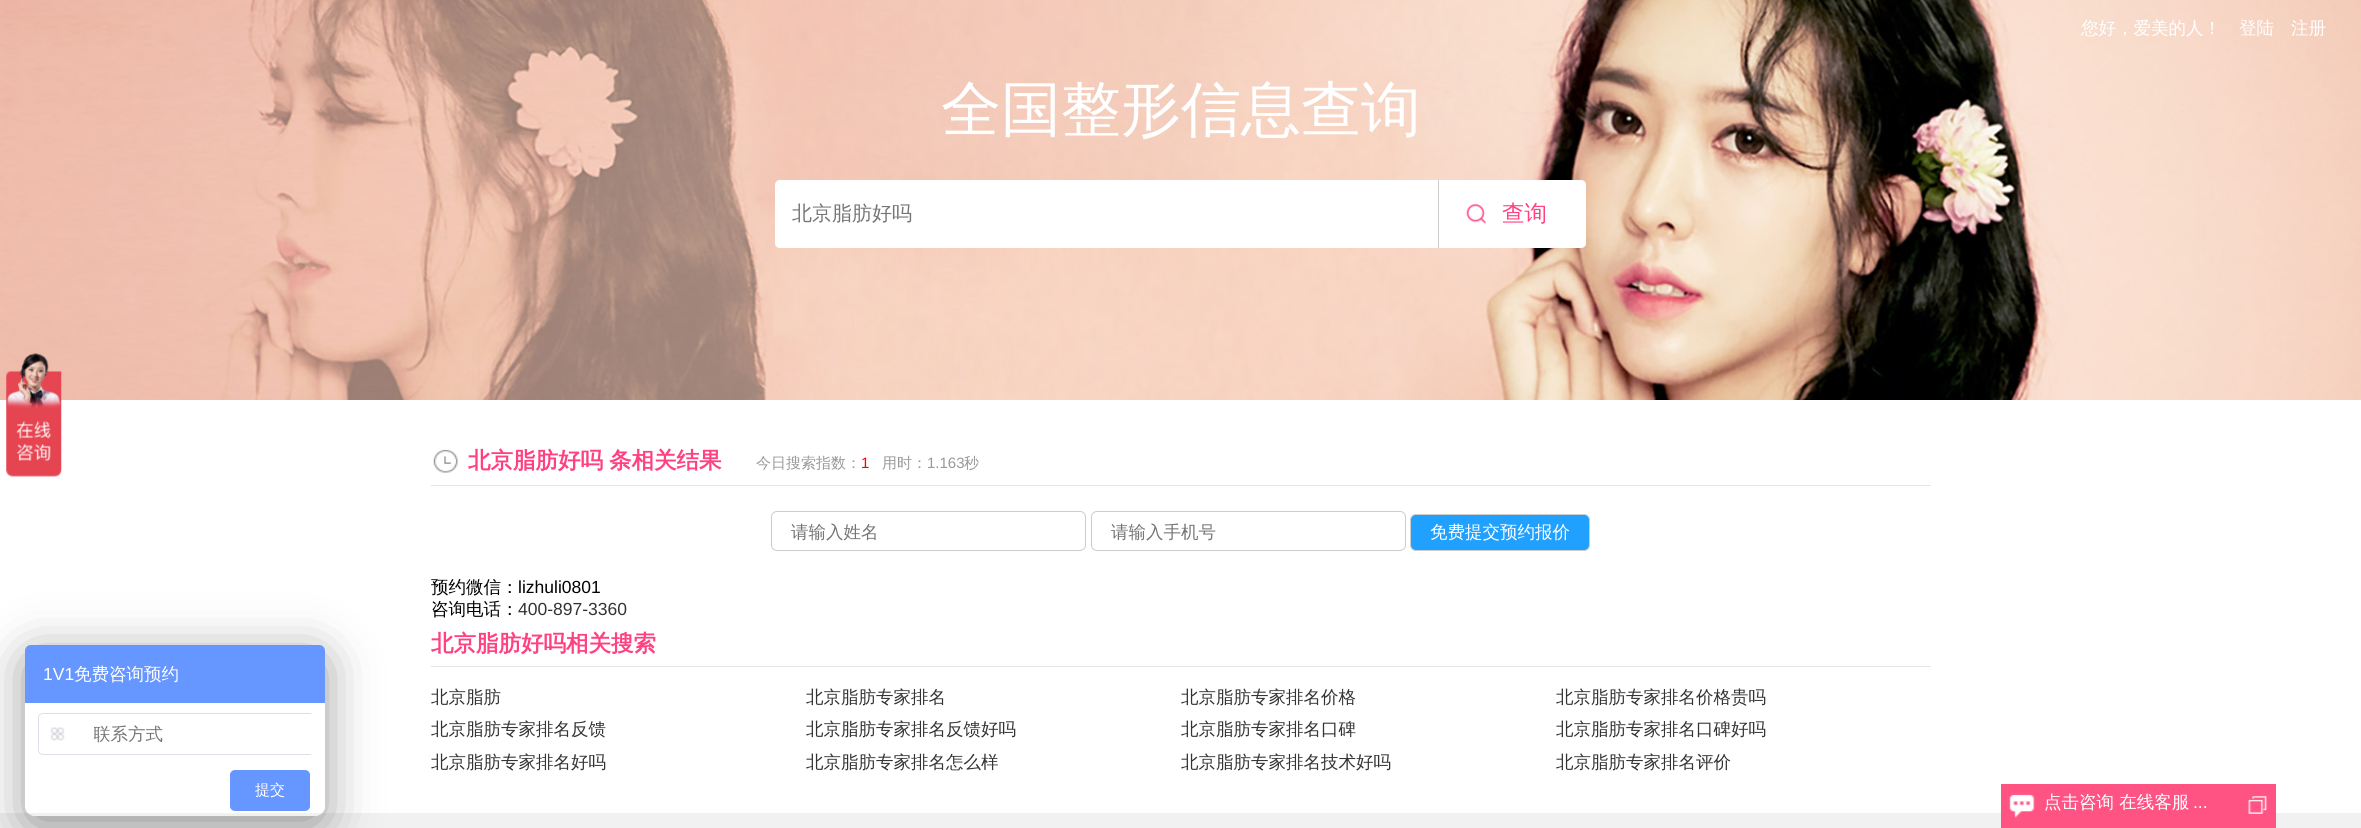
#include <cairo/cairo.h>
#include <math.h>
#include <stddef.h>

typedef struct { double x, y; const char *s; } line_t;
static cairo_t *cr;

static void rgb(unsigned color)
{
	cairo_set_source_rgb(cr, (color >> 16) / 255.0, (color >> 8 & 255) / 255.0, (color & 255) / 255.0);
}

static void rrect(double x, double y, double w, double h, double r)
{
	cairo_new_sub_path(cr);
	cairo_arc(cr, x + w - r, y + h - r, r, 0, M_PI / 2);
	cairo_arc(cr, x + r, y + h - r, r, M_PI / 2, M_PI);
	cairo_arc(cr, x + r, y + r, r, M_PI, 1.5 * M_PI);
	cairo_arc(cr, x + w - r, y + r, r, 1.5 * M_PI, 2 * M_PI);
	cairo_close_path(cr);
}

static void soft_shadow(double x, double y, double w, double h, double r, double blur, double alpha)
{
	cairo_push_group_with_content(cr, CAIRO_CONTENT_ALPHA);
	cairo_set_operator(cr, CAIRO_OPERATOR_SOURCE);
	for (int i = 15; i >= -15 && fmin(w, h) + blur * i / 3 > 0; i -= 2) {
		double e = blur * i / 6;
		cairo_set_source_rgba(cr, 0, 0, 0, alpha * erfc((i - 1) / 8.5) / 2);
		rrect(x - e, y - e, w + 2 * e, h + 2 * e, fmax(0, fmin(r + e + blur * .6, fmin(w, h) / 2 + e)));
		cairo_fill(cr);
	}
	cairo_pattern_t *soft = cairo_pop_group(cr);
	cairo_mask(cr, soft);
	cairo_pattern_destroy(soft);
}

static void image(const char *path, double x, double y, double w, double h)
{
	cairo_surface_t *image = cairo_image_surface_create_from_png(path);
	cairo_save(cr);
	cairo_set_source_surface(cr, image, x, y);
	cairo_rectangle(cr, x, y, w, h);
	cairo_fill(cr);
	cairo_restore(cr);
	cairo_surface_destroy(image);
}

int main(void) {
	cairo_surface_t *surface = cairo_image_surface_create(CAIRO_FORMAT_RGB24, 2361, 828);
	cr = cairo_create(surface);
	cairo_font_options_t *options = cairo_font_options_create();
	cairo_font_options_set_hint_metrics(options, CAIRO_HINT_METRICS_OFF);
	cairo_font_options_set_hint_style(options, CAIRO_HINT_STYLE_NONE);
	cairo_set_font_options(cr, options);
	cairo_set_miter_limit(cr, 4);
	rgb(0xffffff);
	cairo_paint(cr);
	image("img/1.png", 0, 0, 2361, 400);
	rgb(0xffffff);
	cairo_new_path(cr);
	cairo_move_to(cr, 780, 180);
	cairo_line_to(cr, 1439, 180);
	cairo_line_to(cr, 1439, 248);
	cairo_line_to(cr, 780, 248);
	cairo_curve_to(cr, 777, 248, 775, 246, 775, 243);
	cairo_line_to(cr, 775, 185);
	cairo_curve_to(cr, 775, 182, 777, 180, 780, 180);
	cairo_close_path(cr);
	cairo_fill(cr);
	rgb(0xcccccc);
	cairo_rectangle(cr, 1438, 180, 1, 68);
	cairo_fill(cr);
	rgb(0xffffff);
	cairo_new_path(cr);
	cairo_move_to(cr, 1439, 180);
	cairo_line_to(cr, 1581, 180);
	cairo_curve_to(cr, 1584, 180, 1586, 182, 1586, 185);
	cairo_line_to(cr, 1586, 243);
	cairo_curve_to(cr, 1586, 246, 1584, 248, 1581, 248);
	cairo_line_to(cr, 1439, 248);
	cairo_close_path(cr);
	cairo_fill(cr);
	image("img/2.png", 1466, 204, 20, 20);
	image("img/3.png", 6, 353, 56, 124);
	rgb(0xf1f1f1);
	cairo_rectangle(cr, 0, 813, 2361, 15);
	cairo_fill(cr);
	cairo_save(cr);
	cairo_set_fill_rule(cr, CAIRO_FILL_RULE_EVEN_ODD);
	cairo_new_path(cr);
	cairo_move_to(cr, 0, 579);
	cairo_line_to(cr, 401, 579);
	cairo_line_to(cr, 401, 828);
	cairo_line_to(cr, 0, 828);
	cairo_close_path(cr);
	cairo_move_to(cr, 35, 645);
	cairo_line_to(cr, 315, 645);
	cairo_curve_to(cr, 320.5, 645, 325, 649.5, 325, 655);
	cairo_line_to(cr, 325, 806);
	cairo_curve_to(cr, 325, 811.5, 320.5, 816, 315, 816);
	cairo_line_to(cr, 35, 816);
	cairo_curve_to(cr, 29.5, 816, 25, 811.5, 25, 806);
	cairo_line_to(cr, 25, 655);
	cairo_curve_to(cr, 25, 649.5, 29.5, 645, 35, 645);
	cairo_close_path(cr);
	cairo_clip(cr);
	rgb(0x000000);
	soft_shadow(25, 655, 300, 171, 10, 25, 0.4);
	cairo_restore(cr);
	rgb(0xffffff);
	rrect(25, 645, 300, 165, 10);
	cairo_fill(cr);
	rgb(0x6696ff);
	cairo_new_path(cr);
	cairo_move_to(cr, 31, 645);
	cairo_line_to(cr, 319, 645);
	cairo_curve_to(cr, 322.5, 645, 325, 647.5, 325, 651);
	cairo_line_to(cr, 325, 703);
	cairo_line_to(cr, 25, 703);
	cairo_line_to(cr, 25, 651);
	cairo_curve_to(cr, 25, 647.5, 27.5, 645, 31, 645);
	cairo_close_path(cr);
	cairo_fill(cr);
	rrect(38.5, 713.5, 275, 41, 4.5);
	rgb(0xdcdfe6);
	cairo_set_line_width(cr, 1);
	cairo_stroke(cr);
	rgb(0xffffff);
	cairo_new_path(cr);
	cairo_move_to(cr, 44, 714);
	cairo_line_to(cr, 84, 714);
	cairo_line_to(cr, 84, 754);
	cairo_line_to(cr, 44, 754);
	cairo_curve_to(cr, 41, 754, 39, 752, 39, 749);
	cairo_line_to(cr, 39, 719);
	cairo_curve_to(cr, 39, 716, 41, 714, 44, 714);
	cairo_close_path(cr);
	cairo_fill(cr);
	image("img/4.png", 50, 727, 15, 14);
	cairo_rectangle(cr, 310, 714, 4, 40);
	cairo_fill(cr);
	rgb(0x6696ff);
	rrect(230, 770, 80, 40, 5);
	cairo_fill(cr);
	rrect(230, 771, 80, 40, 5);
	cairo_fill(cr);
	image("img/5.png", 433, 449, 25, 24);
	rgb(0xe5e5e5);
	cairo_rectangle(cr, 431, 485, 1500, 1);
	cairo_fill(cr);
	rrect(771.5, 511.5, 314, 39, 5.5);
	rgb(0xcccccc);
	cairo_stroke(cr);
	rrect(1091.5, 511.5, 314, 39, 5.5);
	cairo_stroke(cr);
	rgb(0x20a0ff);
	rrect(1410.5, 514.5, 179, 36, 5.5);
	cairo_fill_preserve(cr);
	rgb(0xcccccc);
	cairo_stroke(cr);
	rgb(0xe5e5e5);
	cairo_rectangle(cr, 431, 666, 1500, 1);
	cairo_fill(cr);
	rgb(0xff5384);
	cairo_rectangle(cr, 2001, 784, 275, 44);
	cairo_fill(cr);
	image("img/6.png", 2009, 794, 26, 24);
	image("img/7.png", 2248, 796, 20, 18);
	cairo_select_font_face(cr, "WenQuanYi Zen Hei Medium", CAIRO_FONT_SLANT_NORMAL, CAIRO_FONT_WEIGHT_NORMAL);
	cairo_set_font_size(cr, 17.5);
	rgb(0xffffff);
	{
		static const line_t items[] = {
			{2081, 34, "您好，爱美的人！"},
			{2239, 34, "登陆"},
			{2291, 34, "注册"},
		};
		for (size_t i = 0; i < sizeof items / sizeof *items; i++) {
			cairo_move_to(cr, items[i].x, items[i].y);
			cairo_show_text(cr, items[i].s);
		}
	}
	cairo_set_font_size(cr, 60);
	cairo_move_to(cr, 941, 130);
	cairo_show_text(cr, "全国整形信息查询");
	cairo_set_font_size(cr, 20);
	rgb(0x757575);
	cairo_move_to(cr, 792, 220);
	cairo_show_text(cr, "北京脂肪好吗");
	cairo_set_font_size(cr, 22.5);
	rgb(0xff4181);
	cairo_move_to(cr, 1502, 221);
	cairo_show_text(cr, "查询");
	cairo_select_font_face(cr, "Liberation Sans", CAIRO_FONT_SLANT_NORMAL, CAIRO_FONT_WEIGHT_NORMAL);
	cairo_set_font_size(cr, 17.5);
	rgb(0xffffff);
	cairo_move_to(cr, 43, 680);
	cairo_show_text(cr, "1V1");
	cairo_select_font_face(cr, "WenQuanYi Zen Hei Medium", CAIRO_FONT_SLANT_NORMAL, CAIRO_FONT_WEIGHT_NORMAL);
	cairo_move_to(cr, 74, 680);
	cairo_show_text(cr, "免费咨询预约");
	cairo_save(cr);
	cairo_rectangle(cr, 94, 724, 226, 22);
	cairo_clip(cr);
	rgb(0x757575);
	cairo_move_to(cr, 93, 740);
	cairo_show_text(cr, "联系方式");
	cairo_restore(cr);
	cairo_set_font_size(cr, 15);
	cairo_move_to(cr, 255, 795);
	cairo_show_text(cr, "提交");
	cairo_select_font_face(cr, "WenQuanYi Zen Hei", CAIRO_FONT_SLANT_NORMAL, CAIRO_FONT_WEIGHT_BOLD);
	cairo_set_font_size(cr, 22.5);
	rgb(0xff4181);
	cairo_move_to(cr, 468, 468);
	cairo_show_text(cr, "北京脂肪好吗");
	cairo_move_to(cr, 609, 468);
	cairo_show_text(cr, "条相关结果");
	cairo_select_font_face(cr, "WenQuanYi Zen Hei Medium", CAIRO_FONT_SLANT_NORMAL, CAIRO_FONT_WEIGHT_NORMAL);
	cairo_set_font_size(cr, 15);
	rgb(0x999999);
	cairo_move_to(cr, 756, 468);
	cairo_show_text(cr, "今日搜索指数：");
	cairo_select_font_face(cr, "Liberation Sans", CAIRO_FONT_SLANT_NORMAL, CAIRO_FONT_WEIGHT_NORMAL);
	rgb(0xff0000);
	cairo_move_to(cr, 861, 468);
	cairo_show_text(cr, "1");
	cairo_select_font_face(cr, "WenQuanYi Zen Hei Medium", CAIRO_FONT_SLANT_NORMAL, CAIRO_FONT_WEIGHT_NORMAL);
	rgb(0x999999);
	cairo_move_to(cr, 882, 468);
	cairo_show_text(cr, "用时：");
	cairo_select_font_face(cr, "Liberation Sans", CAIRO_FONT_SLANT_NORMAL, CAIRO_FONT_WEIGHT_NORMAL);
	cairo_move_to(cr, 927, 468);
	cairo_show_text(cr, "1.163");
	cairo_select_font_face(cr, "WenQuanYi Zen Hei Medium", CAIRO_FONT_SLANT_NORMAL, CAIRO_FONT_WEIGHT_NORMAL);
	cairo_move_to(cr, 964, 468);
	cairo_show_text(cr, "秒");
	cairo_set_font_size(cr, 17.5);
	rgb(0x757575);
	cairo_move_to(cr, 791, 538);
	cairo_show_text(cr, "请输入姓名");
	cairo_move_to(cr, 1111, 538);
	cairo_show_text(cr, "请输入手机号");
	rgb(0xffffff);
	cairo_move_to(cr, 1430, 538);
	cairo_show_text(cr, "免费提交预约报价");
	rgb(0x000000);
	cairo_move_to(cr, 431, 593);
	cairo_show_text(cr, "预约微信：");
	cairo_select_font_face(cr, "Liberation Sans", CAIRO_FONT_SLANT_NORMAL, CAIRO_FONT_WEIGHT_NORMAL);
	cairo_move_to(cr, 518, 593);
	cairo_show_text(cr, "lizhuli0801");
	cairo_select_font_face(cr, "WenQuanYi Zen Hei Medium", CAIRO_FONT_SLANT_NORMAL, CAIRO_FONT_WEIGHT_NORMAL);
	cairo_move_to(cr, 431, 615);
	cairo_show_text(cr, "咨询电话：");
	cairo_select_font_face(cr, "Liberation Sans", CAIRO_FONT_SLANT_NORMAL, CAIRO_FONT_WEIGHT_NORMAL);
	rgb(0x333333);
	cairo_move_to(cr, 518, 615);
	cairo_show_text(cr, "400-897-3360");
	cairo_select_font_face(cr, "WenQuanYi Zen Hei", CAIRO_FONT_SLANT_NORMAL, CAIRO_FONT_WEIGHT_BOLD);
	cairo_set_font_size(cr, 22.5);
	rgb(0xff4181);
	cairo_move_to(cr, 431, 651);
	cairo_show_text(cr, "北京脂肪好吗相关搜索");
	cairo_select_font_face(cr, "WenQuanYi Zen Hei Medium", CAIRO_FONT_SLANT_NORMAL, CAIRO_FONT_WEIGHT_NORMAL);
	cairo_set_font_size(cr, 17.5);
	rgb(0x333333);
	{
		static const line_t items[] = {
			{431, 703, "北京脂肪"},
			{806, 703, "北京脂肪专家排名"},
			{1181, 703, "北京脂肪专家排名价格"},
			{1556, 703, "北京脂肪专家排名价格贵吗"},
			{431, 735, "北京脂肪专家排名反馈"},
			{806, 735, "北京脂肪专家排名反馈好吗"},
			{1181, 735, "北京脂肪专家排名口碑"},
			{1556, 735, "北京脂肪专家排名口碑好吗"},
			{431, 768, "北京脂肪专家排名好吗"},
			{806, 768, "北京脂肪专家排名怎么样"},
			{1181, 768, "北京脂肪专家排名技术好吗"},
			{1556, 768, "北京脂肪专家排名评价"},
		};
		for (size_t i = 0; i < sizeof items / sizeof *items; i++) {
			cairo_move_to(cr, items[i].x, items[i].y);
			cairo_show_text(cr, items[i].s);
		}
	}
	rgb(0xffffff);
	cairo_move_to(cr, 2044, 808);
	cairo_show_text(cr, "点击咨询 在线客服");
	cairo_select_font_face(cr, "Liberation Sans", CAIRO_FONT_SLANT_NORMAL, CAIRO_FONT_WEIGHT_NORMAL);
	cairo_move_to(cr, 2193, 808);
	cairo_show_text(cr, "...");
	cairo_surface_write_to_png(surface, "page.png");
	cairo_font_options_destroy(options);
	cairo_destroy(cr);
	cairo_surface_destroy(surface);
	return 0;
}
